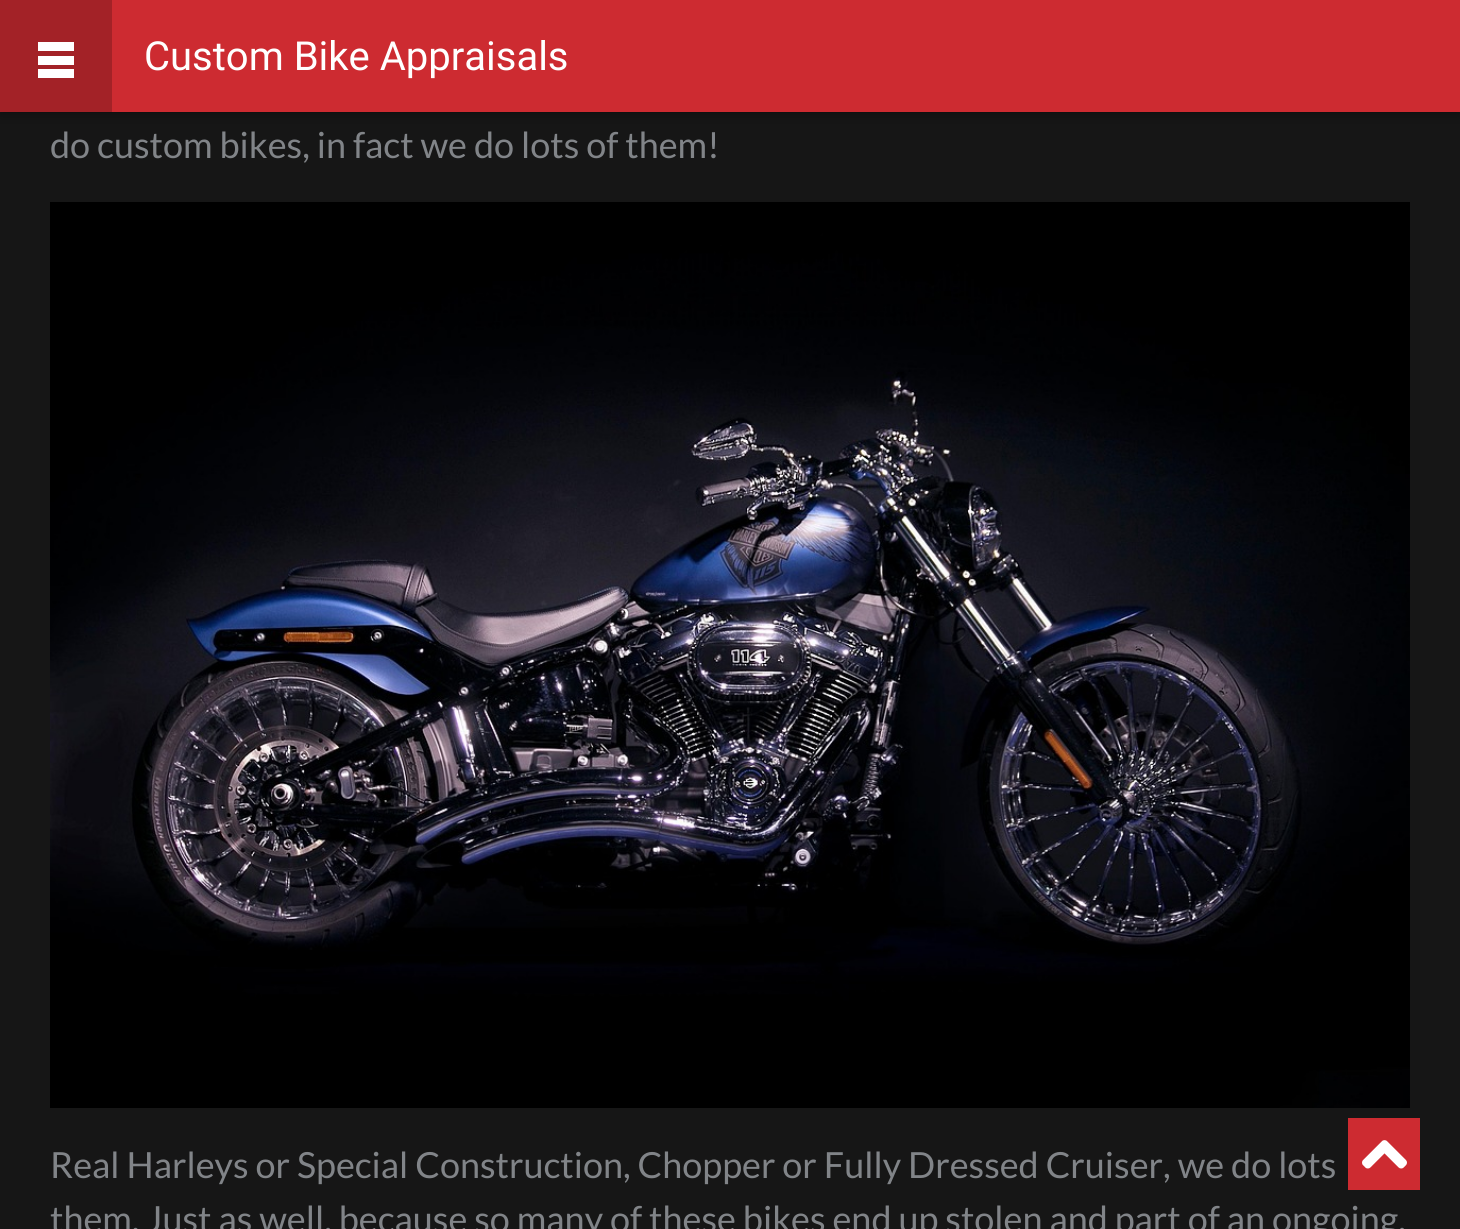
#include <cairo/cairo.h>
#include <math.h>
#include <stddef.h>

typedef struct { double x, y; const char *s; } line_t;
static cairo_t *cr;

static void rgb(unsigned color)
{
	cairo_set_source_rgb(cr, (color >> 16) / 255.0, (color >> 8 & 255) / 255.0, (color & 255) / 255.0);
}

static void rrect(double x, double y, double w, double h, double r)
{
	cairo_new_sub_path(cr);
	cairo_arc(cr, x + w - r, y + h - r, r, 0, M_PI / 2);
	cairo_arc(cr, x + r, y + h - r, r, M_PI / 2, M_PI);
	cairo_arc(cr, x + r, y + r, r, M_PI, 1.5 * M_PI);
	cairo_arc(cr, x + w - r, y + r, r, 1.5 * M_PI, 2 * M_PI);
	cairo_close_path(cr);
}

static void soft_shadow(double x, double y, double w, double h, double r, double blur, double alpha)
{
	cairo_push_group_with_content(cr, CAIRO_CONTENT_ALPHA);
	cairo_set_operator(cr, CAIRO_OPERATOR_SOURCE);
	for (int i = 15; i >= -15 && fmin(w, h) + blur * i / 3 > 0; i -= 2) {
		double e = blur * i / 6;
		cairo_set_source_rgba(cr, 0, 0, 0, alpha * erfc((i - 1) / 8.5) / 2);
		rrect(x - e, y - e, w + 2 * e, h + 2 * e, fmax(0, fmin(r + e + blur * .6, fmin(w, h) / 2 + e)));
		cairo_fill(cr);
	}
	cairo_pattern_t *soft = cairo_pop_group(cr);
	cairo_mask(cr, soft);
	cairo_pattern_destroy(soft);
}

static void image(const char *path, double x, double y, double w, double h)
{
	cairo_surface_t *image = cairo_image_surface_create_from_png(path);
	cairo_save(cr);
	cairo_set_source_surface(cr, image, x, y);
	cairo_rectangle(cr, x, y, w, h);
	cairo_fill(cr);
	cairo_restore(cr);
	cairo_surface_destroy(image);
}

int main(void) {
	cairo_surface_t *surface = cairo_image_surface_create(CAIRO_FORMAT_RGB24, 1460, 1229);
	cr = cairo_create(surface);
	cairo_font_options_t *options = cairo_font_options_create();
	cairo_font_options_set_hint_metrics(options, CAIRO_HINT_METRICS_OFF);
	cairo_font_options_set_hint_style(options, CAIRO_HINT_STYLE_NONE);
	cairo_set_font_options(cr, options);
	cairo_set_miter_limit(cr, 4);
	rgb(0x161616);
	cairo_paint(cr);
	rgb(0x000000);
	soft_shadow(0, 0, 1460, 112, 0, 7, 0.5);
	rgb(0xcd2b31);
	cairo_rectangle(cr, 112, 0, 1348, 112);
	cairo_fill(cr);
	rgb(0xa32227);
	cairo_rectangle(cr, 0, 0, 112, 112);
	cairo_fill(cr);
	rgb(0xffffff);
	cairo_new_path(cr);
	cairo_move_to(cr, 38, 42);
	cairo_line_to(cr, 38, 51);
	cairo_line_to(cr, 74, 51);
	cairo_line_to(cr, 74, 42);
	cairo_close_path(cr);
	cairo_move_to(cr, 38, 65);
	cairo_line_to(cr, 74, 65);
	cairo_line_to(cr, 74, 56);
	cairo_line_to(cr, 38, 56);
	cairo_close_path(cr);
	cairo_move_to(cr, 38, 78);
	cairo_line_to(cr, 74, 78);
	cairo_line_to(cr, 74, 69);
	cairo_line_to(cr, 38, 69);
	cairo_close_path(cr);
	cairo_fill(cr);
	image("img/1.png", 50, 202, 1360, 906);
	rgb(0xcd2b31);
	cairo_rectangle(cr, 1348, 1118, 72, 72);
	cairo_fill(cr);
	image("img/2.png", 1362, 1140, 45, 29);
	cairo_select_font_face(cr, "Roboto", CAIRO_FONT_SLANT_NORMAL, CAIRO_FONT_WEIGHT_NORMAL);
	cairo_set_font_size(cr, 40);
	rgb(0xffffff);
	cairo_move_to(cr, 144, 70);
	cairo_show_text(cr, "Custom Bike Appraisals");
	cairo_select_font_face(cr, "Lato", CAIRO_FONT_SLANT_NORMAL, CAIRO_FONT_WEIGHT_NORMAL);
	cairo_set_font_size(cr, 36);
	rgb(0x818488);
	{
		static const line_t items[] = {
			{50, 158, "do custom bikes, in fact we do lots of them!"},
			{50, 1178, "Real Harleys or Special Construction, Chopper or Fully Dressed Cruiser, we do lots"},
			{50, 1232, "them. Just as well, because so many of these bikes end up stolen and part of an ongoing,"},
		};
		for (size_t i = 0; i < sizeof items / sizeof *items; i++) {
			cairo_move_to(cr, items[i].x, items[i].y);
			cairo_show_text(cr, items[i].s);
		}
	}
	cairo_surface_write_to_png(surface, "page.png");
	cairo_font_options_destroy(options);
	cairo_destroy(cr);
	cairo_surface_destroy(surface);
	return 0;
}
